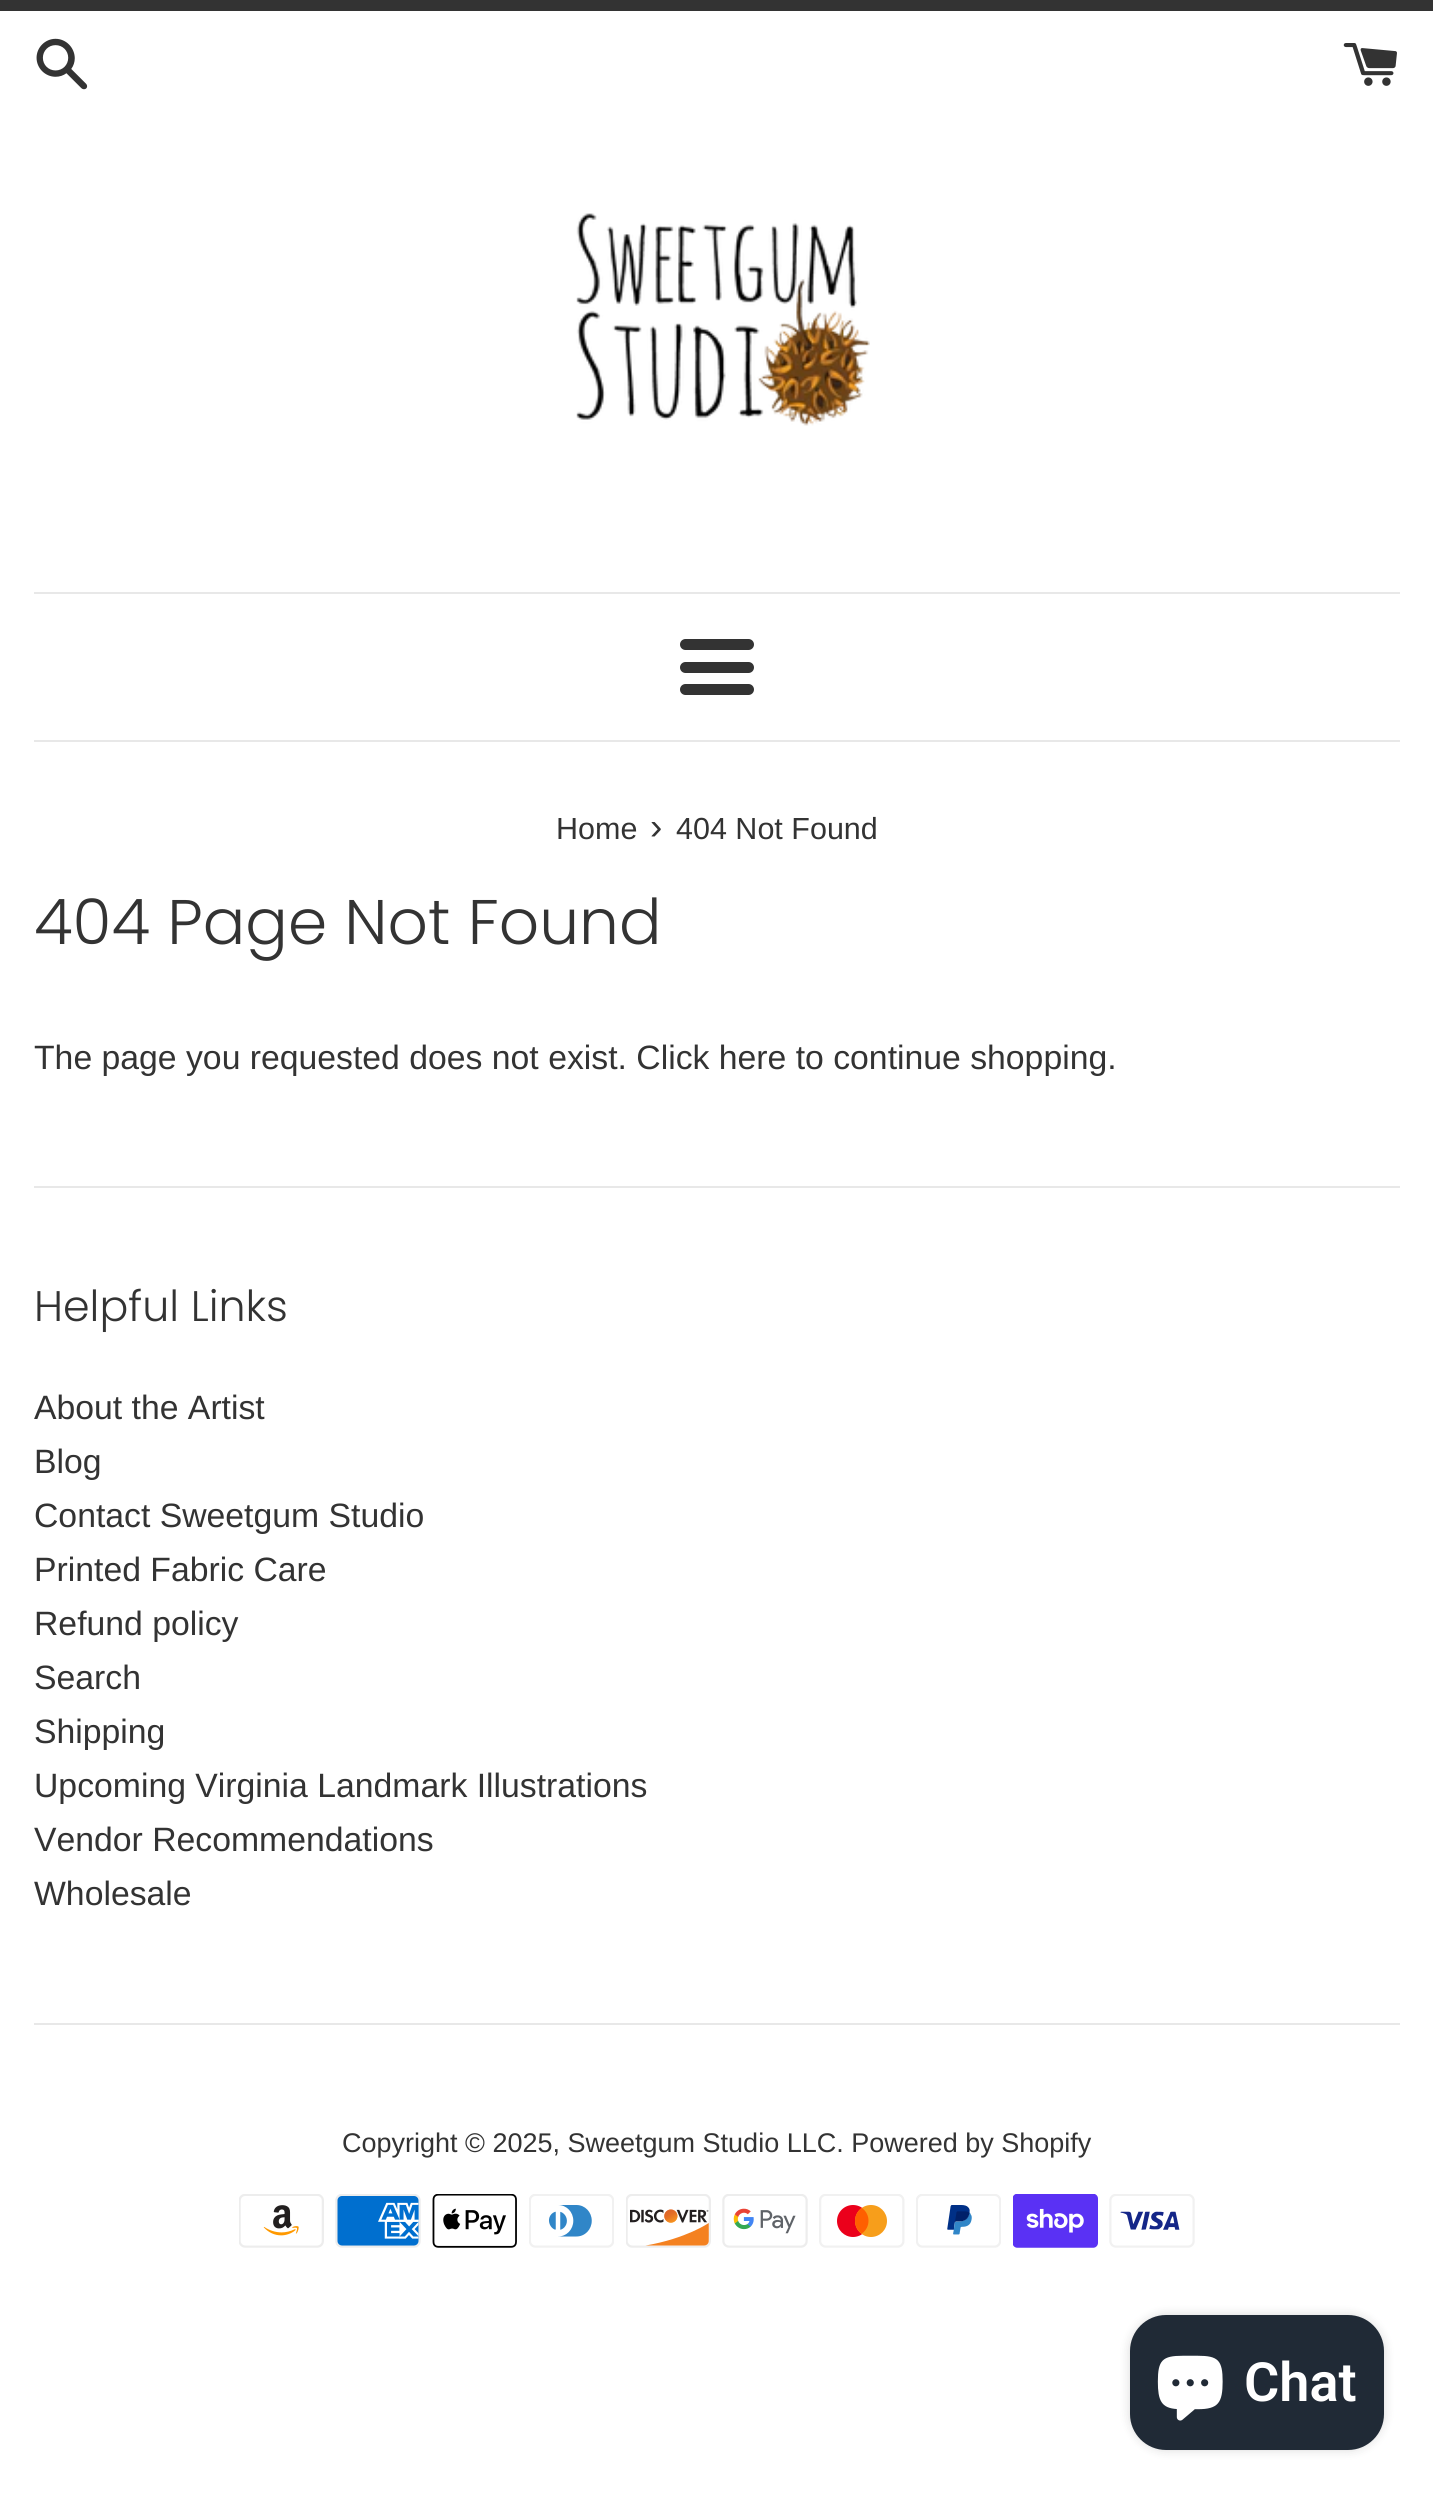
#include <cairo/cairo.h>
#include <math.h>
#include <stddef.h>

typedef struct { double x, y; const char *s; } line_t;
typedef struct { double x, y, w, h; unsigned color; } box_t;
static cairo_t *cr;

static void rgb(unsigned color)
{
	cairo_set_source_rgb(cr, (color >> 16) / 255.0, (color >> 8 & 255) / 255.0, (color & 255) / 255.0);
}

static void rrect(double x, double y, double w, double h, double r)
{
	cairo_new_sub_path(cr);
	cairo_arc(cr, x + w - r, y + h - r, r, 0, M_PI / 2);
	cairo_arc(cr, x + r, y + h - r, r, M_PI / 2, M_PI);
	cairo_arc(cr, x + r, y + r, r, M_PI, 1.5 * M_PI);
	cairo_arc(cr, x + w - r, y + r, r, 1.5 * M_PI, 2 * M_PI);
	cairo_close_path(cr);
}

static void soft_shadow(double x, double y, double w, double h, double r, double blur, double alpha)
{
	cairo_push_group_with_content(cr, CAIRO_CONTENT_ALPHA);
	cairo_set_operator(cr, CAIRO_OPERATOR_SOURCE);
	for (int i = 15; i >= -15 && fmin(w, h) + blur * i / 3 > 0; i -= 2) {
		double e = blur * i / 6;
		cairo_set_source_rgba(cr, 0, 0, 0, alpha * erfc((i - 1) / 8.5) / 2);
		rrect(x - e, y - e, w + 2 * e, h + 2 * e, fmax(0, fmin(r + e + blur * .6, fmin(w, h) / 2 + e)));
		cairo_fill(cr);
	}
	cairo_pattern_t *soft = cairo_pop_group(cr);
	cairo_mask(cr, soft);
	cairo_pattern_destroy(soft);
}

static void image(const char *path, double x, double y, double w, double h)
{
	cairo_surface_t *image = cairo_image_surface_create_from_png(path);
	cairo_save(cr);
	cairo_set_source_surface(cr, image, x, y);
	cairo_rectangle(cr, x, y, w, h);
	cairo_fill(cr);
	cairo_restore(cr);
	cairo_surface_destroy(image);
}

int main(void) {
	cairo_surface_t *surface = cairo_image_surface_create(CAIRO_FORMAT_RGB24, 1433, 2497);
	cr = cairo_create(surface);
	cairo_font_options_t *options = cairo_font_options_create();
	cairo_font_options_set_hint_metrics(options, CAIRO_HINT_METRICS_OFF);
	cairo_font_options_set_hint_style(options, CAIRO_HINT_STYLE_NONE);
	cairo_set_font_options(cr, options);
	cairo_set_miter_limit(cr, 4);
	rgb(0xffffff);
	cairo_paint(cr);
	rgb(0x333333);
	cairo_rectangle(cr, 0, 0, 1433, 11);
	cairo_fill(cr);
	image("img/1.png", 36, 38, 52, 52);
	image("img/2.png", 1343, 43, 54, 43);
	image("img/3.png", 576, 213, 294, 213);
	rgb(0xe8e8e8);
	cairo_rectangle(cr, 34, 592, 1366, 2);
	cairo_fill(cr);
	rgb(0x333333);
	rrect(680, 639, 74, 11, 5.5);
	cairo_fill(cr);
	rrect(680, 662, 74, 11, 5.5);
	cairo_fill(cr);
	rrect(680, 684, 74, 11, 5.5);
	cairo_fill(cr);
	{
		static const box_t items[] = {
			{34, 740, 1366, 2, 0xe8e8e8},
			{34, 1186, 1366, 2, 0xe8e8e8},
			{34, 2023, 1366, 2, 0xe8e8e8},
		};
		for (size_t i = 0; i < sizeof items / sizeof *items; i++) {
			rgb(items[i].color);
			cairo_rectangle(cr, items[i].x, items[i].y, items[i].w, items[i].h);
			cairo_fill(cr);
		}
	}
	image("img/4.png", 239, 2194, 85, 54);
	image("img/5.png", 335, 2194, 86, 54);
	image("img/6.png", 432, 2194, 85, 54);
	image("img/7.png", 529, 2194, 85, 54);
	image("img/8.png", 626, 2194, 85, 54);
	image("img/9.png", 722, 2194, 86, 54);
	image("img/10.png", 819, 2194, 86, 54);
	image("img/11.png", 916, 2194, 85, 54);
	image("img/12.png", 1013, 2194, 85, 54);
	image("img/13.png", 1109, 2194, 86, 54);
	rgb(0x000000);
	soft_shadow(1130, 2315, 254, 135, 36, 5.5, 0.15);
	rgb(0x202a36);
	rrect(1130, 2315, 254, 135, 36);
	cairo_fill(cr);
	image("img/14.png", 1157, 2355, 66, 66);
	cairo_select_font_face(cr, "Liberation Sans", CAIRO_FONT_SLANT_NORMAL, CAIRO_FONT_WEIGHT_NORMAL);
	cairo_set_font_size(cr, 30.5);
	rgb(0x333333);
	cairo_move_to(cr, 556, 839);
	cairo_show_text(cr, "Home");
	cairo_set_font_size(cr, 37);
	cairo_move_to(cr, 650, 839);
	cairo_show_text(cr, "›");
	cairo_set_font_size(cr, 30.5);
	cairo_move_to(cr, 676, 839);
	cairo_show_text(cr, "404 Not Found");
	cairo_select_font_face(cr, "Poppins Light", CAIRO_FONT_SLANT_NORMAL, CAIRO_FONT_WEIGHT_NORMAL);
	cairo_set_font_size(cr, 63);
	cairo_move_to(cr, 34, 944);
	cairo_show_text(cr, "404 Page Not Found");
	cairo_select_font_face(cr, "Liberation Sans", CAIRO_FONT_SLANT_NORMAL, CAIRO_FONT_WEIGHT_NORMAL);
	cairo_set_font_size(cr, 33.75);
	cairo_move_to(cr, 34, 1069);
	cairo_show_text(cr, "The page you requested does not exist. Click here to continue shopping.");
	cairo_select_font_face(cr, "Poppins Light", CAIRO_FONT_SLANT_NORMAL, CAIRO_FONT_WEIGHT_NORMAL);
	cairo_set_font_size(cr, 42.75);
	cairo_move_to(cr, 34, 1321);
	cairo_show_text(cr, "Helpful Links");
	cairo_select_font_face(cr, "Liberation Sans", CAIRO_FONT_SLANT_NORMAL, CAIRO_FONT_WEIGHT_NORMAL);
	cairo_set_font_size(cr, 33.75);
	{
		static const line_t items[] = {
			{34, 1419, "About the Artist"},
			{34, 1473, "Blog"},
			{34, 1527, "Contact Sweetgum Studio"},
			{34, 1581, "Printed Fabric Care"},
			{34, 1635, "Refund policy"},
			{34, 1689, "Search"},
			{34, 1743, "Shipping"},
			{34, 1797, "Upcoming Virginia Landmark Illustrations"},
			{34, 1851, "Vendor Recommendations"},
			{34, 1905, "Wholesale"},
		};
		for (size_t i = 0; i < sizeof items / sizeof *items; i++) {
			cairo_move_to(cr, items[i].x, items[i].y);
			cairo_show_text(cr, items[i].s);
		}
	}
	cairo_set_font_size(cr, 27);
	cairo_move_to(cr, 342, 2152);
	cairo_show_text(cr, "Copyright © 2025, Sweetgum Studio LLC. Powered by Shopify");
	cairo_select_font_face(cr, "Roboto SemiBold", CAIRO_FONT_SLANT_NORMAL, CAIRO_FONT_WEIGHT_NORMAL);
	cairo_set_font_size(cr, 54);
	rgb(0xffffff);
	cairo_move_to(cr, 1244, 2401);
	cairo_show_text(cr, "Chat");
	cairo_surface_write_to_png(surface, "page.png");
	cairo_font_options_destroy(options);
	cairo_destroy(cr);
	cairo_surface_destroy(surface);
	return 0;
}
